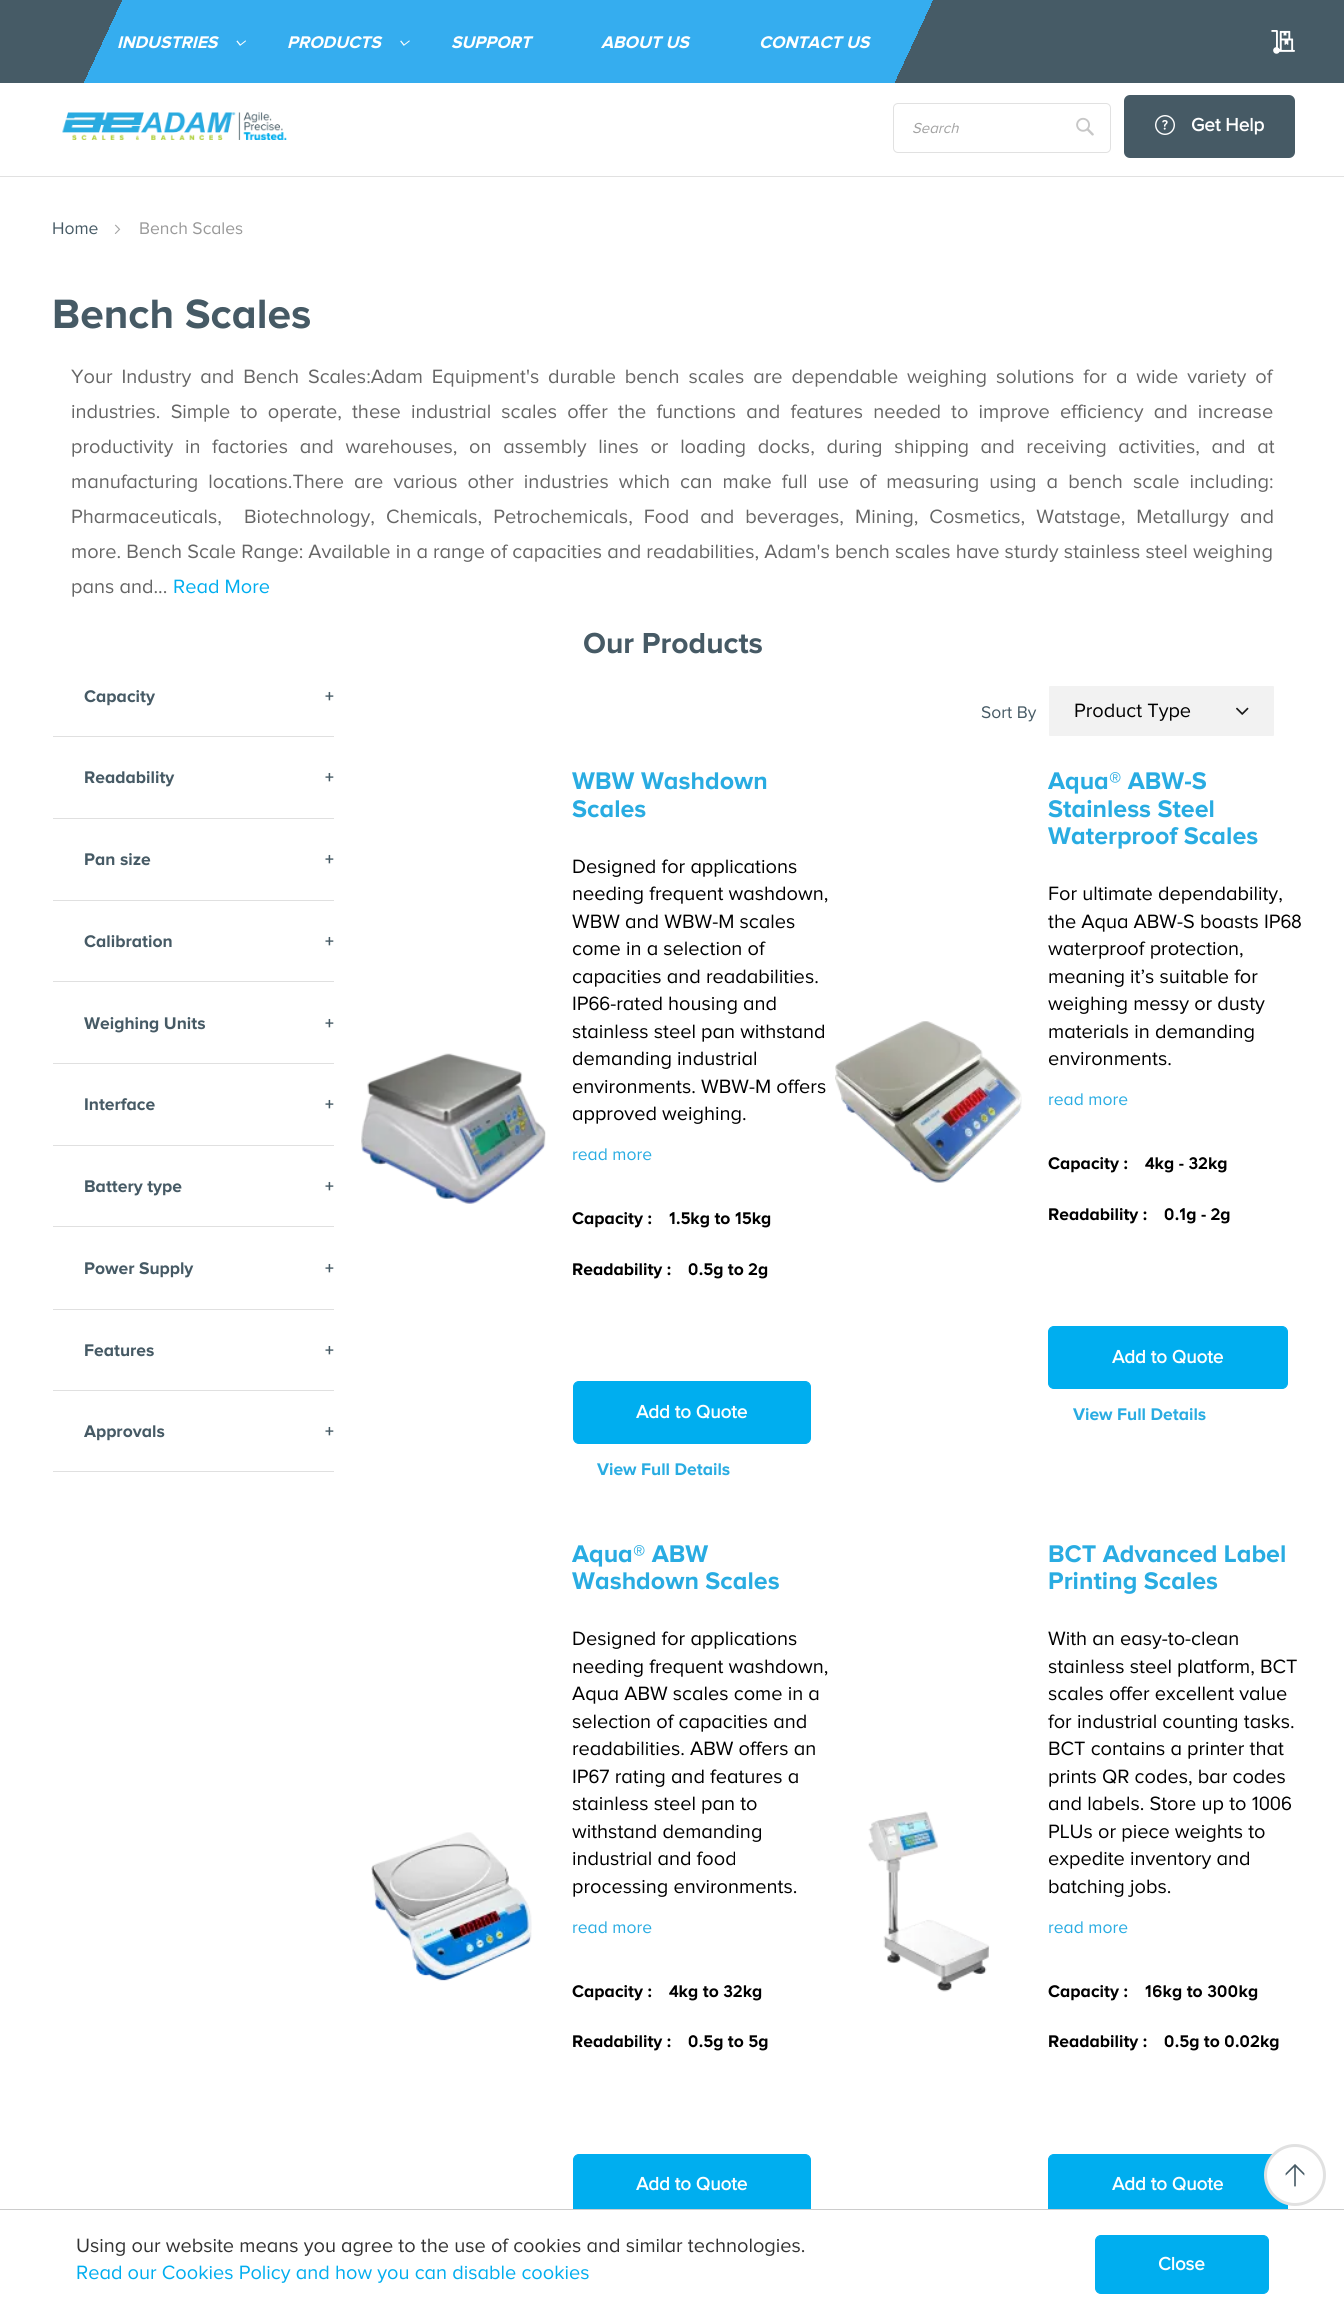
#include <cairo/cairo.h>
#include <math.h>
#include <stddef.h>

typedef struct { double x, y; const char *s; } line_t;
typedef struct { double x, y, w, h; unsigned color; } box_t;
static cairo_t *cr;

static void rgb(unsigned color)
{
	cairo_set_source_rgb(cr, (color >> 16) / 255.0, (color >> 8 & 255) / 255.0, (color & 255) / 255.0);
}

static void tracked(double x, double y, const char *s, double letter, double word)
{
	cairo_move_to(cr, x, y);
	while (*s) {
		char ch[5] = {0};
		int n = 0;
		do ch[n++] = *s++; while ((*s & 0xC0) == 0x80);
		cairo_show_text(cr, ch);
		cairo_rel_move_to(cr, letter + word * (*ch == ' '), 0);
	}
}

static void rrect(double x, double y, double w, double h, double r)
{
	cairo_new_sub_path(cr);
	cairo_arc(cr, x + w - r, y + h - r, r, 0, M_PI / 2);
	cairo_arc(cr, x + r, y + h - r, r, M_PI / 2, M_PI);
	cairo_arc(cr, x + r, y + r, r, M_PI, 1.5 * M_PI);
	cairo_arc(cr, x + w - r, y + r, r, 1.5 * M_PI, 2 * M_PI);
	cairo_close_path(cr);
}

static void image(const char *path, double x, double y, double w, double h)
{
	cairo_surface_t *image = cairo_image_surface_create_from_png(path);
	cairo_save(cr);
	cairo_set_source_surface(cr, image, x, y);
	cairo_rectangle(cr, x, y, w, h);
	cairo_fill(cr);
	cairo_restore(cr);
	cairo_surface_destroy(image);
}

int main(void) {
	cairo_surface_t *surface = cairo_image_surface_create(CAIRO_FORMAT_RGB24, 1344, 2306);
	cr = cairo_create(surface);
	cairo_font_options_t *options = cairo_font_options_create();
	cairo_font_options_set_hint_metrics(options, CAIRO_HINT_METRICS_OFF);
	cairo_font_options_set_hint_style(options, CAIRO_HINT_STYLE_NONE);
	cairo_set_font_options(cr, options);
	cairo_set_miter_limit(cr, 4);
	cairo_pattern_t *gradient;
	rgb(0xffffff);
	cairo_paint(cr);
	gradient = cairo_pattern_create_linear(89, -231, 1256, 313);
	cairo_pattern_add_color_stop_rgba(gradient, 0.67, 0.208, 0.678, 0.937, 1);
	cairo_pattern_add_color_stop_rgba(gradient, 0.67, 0.275, 0.357, 0.4, 1);
	cairo_set_source(cr, gradient);
	cairo_pattern_destroy(gradient);
	cairo_rectangle(cr, 880, 0, 464, 83);
	cairo_fill(cr);
	gradient = cairo_pattern_create_linear(46, -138, 816, 221);
	cairo_pattern_add_color_stop_rgba(gradient, 0.15, 0.275, 0.357, 0.4, 1);
	cairo_pattern_add_color_stop_rgba(gradient, 0.15, 0.208, 0.678, 0.937, 1);
	cairo_set_source(cr, gradient);
	cairo_pattern_destroy(gradient);
	cairo_rectangle(cr, 0, 0, 880, 83);
	cairo_fill(cr);
	image("img/1.png", 236, 40, 10, 6);
	image("img/2.png", 400, 40, 10, 6);
	image("img/3.png", 1271, 30, 24, 24);
	image("img/4.png", 62, 112, 225, 28);
	rrect(893.5, 103.5, 217, 49, 4.5);
	rgb(0xe1e1e1);
	cairo_set_line_width(cr, 1);
	cairo_stroke(cr);
	image("img/5.png", 1076, 117, 18, 19);
	rgb(0x465a65);
	rrect(1124, 95, 171, 63, 6);
	cairo_fill(cr);
	image("img/6.png", 1155, 115, 20, 20);
	rgb(0xe1e1e1);
	cairo_rectangle(cr, 0, 176, 1344, 1);
	cairo_fill(cr);
	image("img/7.png", 114, 224, 7, 10);
	{
		static const box_t items[] = {
			{53, 736, 281, 1, 0xe0e0e0},
			{53, 818, 281, 1, 0xe0e0e0},
			{53, 900, 281, 1, 0xe0e0e0},
			{53, 981, 281, 1, 0xe0e0e0},
			{53, 1063, 281, 1, 0xe0e0e0},
			{53, 1145, 281, 1, 0xe0e0e0},
			{53, 1226, 281, 1, 0xe0e0e0},
			{53, 1309, 281, 1, 0xe0e0e0},
			{53, 1390, 281, 1, 0xe0e0e0},
			{53, 1471, 281, 1, 0xe0e0e0},
		};
		for (size_t i = 0; i < sizeof items / sizeof *items; i++) {
			rgb(items[i].color);
			cairo_rectangle(cr, items[i].x, items[i].y, items[i].w, items[i].h);
			cairo_fill(cr);
		}
	}
	rgb(0xf2f2f2);
	rrect(1049, 686, 225, 50, 1);
	cairo_fill(cr);
	image("img/8.png", 1236, 707, 13, 8);
	image("img/9.png", 361, 1053, 185, 151);
	rgb(0x00aeef);
	rrect(573.5, 1381.5, 237, 62, 5.5);
	cairo_fill_preserve(cr);
	cairo_stroke(cr);
	image("img/10.png", 835, 1021, 187, 162);
	rrect(1048.5, 1326.5, 239, 62, 5.5);
	cairo_fill_preserve(cr);
	cairo_stroke(cr);
	image("img/11.png", 371, 1832, 161, 149);
	rrect(573.5, 2154.5, 237, 61, 5.5);
	cairo_fill_preserve(cr);
	cairo_stroke(cr);
	image("img/12.png", 868, 1811, 122, 181);
	rrect(1048.5, 2154.5, 239, 61, 5.5);
	cairo_fill_preserve(cr);
	cairo_stroke(cr);
	rgb(0xffffff);
	cairo_arc(cr, 1295, 2175, 29.5, 0, 2 * M_PI);
	cairo_fill_preserve(cr);
	rgb(0xe1e1e1);
	cairo_set_line_width(cr, 3);
	cairo_stroke(cr);
	image("img/13.png", 1285, 2164, 20, 23);
	rgb(0xffffff);
	cairo_rectangle(cr, 573, 2210, 715, 6);
	cairo_fill(cr);
	rgb(0xcccccc);
	cairo_rectangle(cr, 0, 2209, 1344, 1);
	cairo_fill(cr);
	rgb(0x00aeef);
	rrect(1095.5, 2235.5, 173, 58, 5.5);
	cairo_fill_preserve(cr);
	cairo_set_line_width(cr, 1);
	cairo_stroke(cr);
	cairo_select_font_face(cr, "Proxima Nova", CAIRO_FONT_SLANT_ITALIC, CAIRO_FONT_WEIGHT_BOLD);
	cairo_set_font_size(cr, 17.5);
	rgb(0xffffff);
	{
		static const line_t items[] = {
			{117, 48, "INDUSTRIES"},
			{287, 48, "PRODUCTS"},
			{451, 48, "SUPPORT"},
			{601, 48, "ABOUT US"},
			{759, 48, "CONTACT US"},
		};
		for (size_t i = 0; i < sizeof items / sizeof *items; i++) {
			cairo_move_to(cr, items[i].x, items[i].y);
			cairo_show_text(cr, items[i].s);
		}
	}
	cairo_select_font_face(cr, "Proxima Nova", CAIRO_FONT_SLANT_ITALIC, CAIRO_FONT_WEIGHT_NORMAL);
	cairo_set_font_size(cr, 15);
	rgb(0xa2a2a2);
	cairo_move_to(cr, 912, 133);
	cairo_show_text(cr, "Search");
	cairo_select_font_face(cr, "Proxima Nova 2", CAIRO_FONT_SLANT_NORMAL, CAIRO_FONT_WEIGHT_BOLD);
	cairo_set_font_size(cr, 18.75);
	rgb(0xffffff);
	cairo_move_to(cr, 1191, 131);
	cairo_show_text(cr, "Get Help");
	cairo_select_font_face(cr, "Proxima Nova", CAIRO_FONT_SLANT_NORMAL, CAIRO_FONT_WEIGHT_NORMAL);
	cairo_set_font_size(cr, 17.5);
	rgb(0x465a65);
	cairo_move_to(cr, 52, 234);
	cairo_show_text(cr, "Home");
	rgb(0x999999);
	cairo_move_to(cr, 139, 234);
	cairo_show_text(cr, "Bench Scales");
	cairo_select_font_face(cr, "Proxima Nova", CAIRO_FONT_SLANT_NORMAL, CAIRO_FONT_WEIGHT_BOLD);
	cairo_set_font_size(cr, 42.5);
	rgb(0x465a65);
	cairo_move_to(cr, 52, 328);
	cairo_show_text(cr, "Bench Scales");
	cairo_select_font_face(cr, "Proxima Nova", CAIRO_FONT_SLANT_NORMAL, CAIRO_FONT_WEIGHT_NORMAL);
	cairo_set_font_size(cr, 20);
	rgb(0x666666);
	tracked(71, 383, "Your Industry and Bench Scales:Adam Equipment's durable bench scales are dependable weighing solutions for a wide variety of", 0, 3.75);
	tracked(71, 418, "industries. Simple to operate, these industrial scales offer the functions and features needed to improve efficiency and increase", 0, 5);
	tracked(71, 453, "productivity in factories and warehouses, on assembly lines or loading docks, during shipping and receiving activities, and at", 0, 6.5);
	tracked(71, 488, "manufacturing locations.There are various other industries which can make full use of measuring using a bench scale including:", 0, 4.9);
	tracked(71, 523, "Pharmaceuticals,  Biotechnology, Chemicals, Petrochemicals, Food and beverages, Mining, Cosmetics, Watstage, Metallurgy and", 0, 5.9);
	cairo_move_to(cr, 71, 558);
	cairo_show_text(cr, "more. Bench Scale Range: Available in a range of capacities and readabilities, Adam's bench scales have sturdy stainless steel weighing");
	cairo_move_to(cr, 71, 593);
	cairo_show_text(cr, "pans and...");
	rgb(0x00adef);
	cairo_move_to(cr, 173, 593);
	cairo_show_text(cr, "Read More");
	cairo_select_font_face(cr, "Proxima Nova", CAIRO_FONT_SLANT_NORMAL, CAIRO_FONT_WEIGHT_BOLD);
	cairo_set_font_size(cr, 30);
	rgb(0x465a65);
	cairo_move_to(cr, 583, 653);
	cairo_show_text(cr, "Our Products");
	cairo_set_font_size(cr, 17.5);
	{
		static const line_t items[] = {
			{84, 702, "Capacity"},
			{325, 702, "+"},
			{84, 783, "Readability"},
			{325, 783, "+"},
			{84, 865, "Pan size"},
			{325, 865, "+"},
			{84, 947, "Calibration"},
			{325, 947, "+"},
			{84, 1029, "Weighing Units"},
			{325, 1029, "+"},
			{84, 1110, "Interface"},
			{325, 1110, "+"},
			{84, 1192, "Battery type"},
			{325, 1192, "+"},
			{84, 1274, "Power Supply"},
			{325, 1274, "+"},
			{84, 1356, "Features"},
			{325, 1356, "+"},
			{84, 1437, "Approvals"},
			{325, 1437, "+"},
		};
		for (size_t i = 0; i < sizeof items / sizeof *items; i++) {
			cairo_move_to(cr, items[i].x, items[i].y);
			cairo_show_text(cr, items[i].s);
		}
	}
	cairo_select_font_face(cr, "Proxima Nova", CAIRO_FONT_SLANT_NORMAL, CAIRO_FONT_WEIGHT_NORMAL);
	cairo_move_to(cr, 981, 718);
	cairo_show_text(cr, "Sort By");
	cairo_set_font_size(cr, 20);
	rgb(0x000000);
	cairo_move_to(cr, 1074, 717);
	cairo_show_text(cr, "Product Type");
	cairo_select_font_face(cr, "Proxima Nova", CAIRO_FONT_SLANT_NORMAL, CAIRO_FONT_WEIGHT_BOLD);
	cairo_set_font_size(cr, 25);
	rgb(0x29ace2);
	cairo_move_to(cr, 572, 789);
	cairo_show_text(cr, "WBW Washdown");
	cairo_move_to(cr, 572, 817);
	cairo_show_text(cr, "Scales");
	cairo_select_font_face(cr, "Proxima Nova", CAIRO_FONT_SLANT_NORMAL, CAIRO_FONT_WEIGHT_NORMAL);
	cairo_set_font_size(cr, 20);
	rgb(0x000000);
	{
		static const line_t items[] = {
			{572, 873, "Designed for applications"},
			{572, 900, "needing frequent washdown,"},
			{572, 928, "WBW and WBW-M scales"},
			{572, 955, "come in a selection of"},
			{572, 983, "capacities and readabilities."},
			{572, 1010, "IP66-rated housing and"},
			{572, 1038, "stainless steel pan withstand"},
			{572, 1065, "demanding industrial"},
			{572, 1093, "environments. WBW-M offers"},
			{572, 1120, "approved weighing."},
		};
		for (size_t i = 0; i < sizeof items / sizeof *items; i++) {
			cairo_move_to(cr, items[i].x, items[i].y);
			cairo_show_text(cr, items[i].s);
		}
	}
	cairo_set_font_size(cr, 17.5);
	rgb(0x29ace2);
	cairo_move_to(cr, 572, 1160);
	cairo_show_text(cr, "read more");
	cairo_select_font_face(cr, "Proxima Nova", CAIRO_FONT_SLANT_NORMAL, CAIRO_FONT_WEIGHT_BOLD);
	rgb(0x000000);
	{
		static const line_t items[] = {
			{572, 1224, "Capacity :"},
			{669, 1224, "1.5kg to 15kg"},
			{572, 1275, "Readability :"},
			{688, 1275, "0.5g to 2g"},
		};
		for (size_t i = 0; i < sizeof items / sizeof *items; i++) {
			cairo_move_to(cr, items[i].x, items[i].y);
			cairo_show_text(cr, items[i].s);
		}
	}
	cairo_select_font_face(cr, "Proxima Nova 2", CAIRO_FONT_SLANT_NORMAL, CAIRO_FONT_WEIGHT_BOLD);
	cairo_set_font_size(cr, 18.75);
	rgb(0xffffff);
	cairo_move_to(cr, 636, 1418);
	cairo_show_text(cr, "Add to Quote");
	cairo_select_font_face(cr, "Proxima Nova", CAIRO_FONT_SLANT_NORMAL, CAIRO_FONT_WEIGHT_BOLD);
	cairo_set_font_size(cr, 17.5);
	rgb(0x29ace2);
	cairo_move_to(cr, 597, 1475);
	cairo_show_text(cr, "View Full Details");
	cairo_set_font_size(cr, 25);
	{
		static const line_t items[] = {
			{1048, 789, "Aqua® ABW-S"},
			{1048, 817, "Stainless Steel"},
			{1048, 844, "Waterproof Scales"},
		};
		for (size_t i = 0; i < sizeof items / sizeof *items; i++) {
			cairo_move_to(cr, items[i].x, items[i].y);
			cairo_show_text(cr, items[i].s);
		}
	}
	cairo_select_font_face(cr, "Proxima Nova", CAIRO_FONT_SLANT_NORMAL, CAIRO_FONT_WEIGHT_NORMAL);
	cairo_set_font_size(cr, 20);
	rgb(0x000000);
	{
		static const line_t items[] = {
			{1048, 900, "For ultimate dependability,"},
			{1048, 928, "the Aqua ABW-S boasts IP68"},
			{1048, 955, "waterproof protection,"},
			{1048, 983, "meaning it’s suitable for"},
			{1048, 1010, "weighing messy or dusty"},
			{1048, 1038, "materials in demanding"},
			{1048, 1065, "environments."},
		};
		for (size_t i = 0; i < sizeof items / sizeof *items; i++) {
			cairo_move_to(cr, items[i].x, items[i].y);
			cairo_show_text(cr, items[i].s);
		}
	}
	cairo_set_font_size(cr, 17.5);
	rgb(0x29ace2);
	cairo_move_to(cr, 1048, 1105);
	cairo_show_text(cr, "read more");
	cairo_select_font_face(cr, "Proxima Nova", CAIRO_FONT_SLANT_NORMAL, CAIRO_FONT_WEIGHT_BOLD);
	rgb(0x000000);
	{
		static const line_t items[] = {
			{1048, 1169, "Capacity :"},
			{1145, 1169, "4kg - 32kg"},
			{1048, 1220, "Readability :"},
			{1164, 1220, "0.1g - 2g"},
		};
		for (size_t i = 0; i < sizeof items / sizeof *items; i++) {
			cairo_move_to(cr, items[i].x, items[i].y);
			cairo_show_text(cr, items[i].s);
		}
	}
	cairo_select_font_face(cr, "Proxima Nova 2", CAIRO_FONT_SLANT_NORMAL, CAIRO_FONT_WEIGHT_BOLD);
	cairo_set_font_size(cr, 18.75);
	rgb(0xffffff);
	cairo_move_to(cr, 1112, 1363);
	cairo_show_text(cr, "Add to Quote");
	cairo_select_font_face(cr, "Proxima Nova", CAIRO_FONT_SLANT_NORMAL, CAIRO_FONT_WEIGHT_BOLD);
	cairo_set_font_size(cr, 17.5);
	rgb(0x29ace2);
	cairo_move_to(cr, 1073, 1420);
	cairo_show_text(cr, "View Full Details");
	cairo_set_font_size(cr, 25);
	cairo_move_to(cr, 572, 1562);
	cairo_show_text(cr, "Aqua® ABW");
	cairo_move_to(cr, 572, 1589);
	cairo_show_text(cr, "Washdown Scales");
	cairo_select_font_face(cr, "Proxima Nova", CAIRO_FONT_SLANT_NORMAL, CAIRO_FONT_WEIGHT_NORMAL);
	cairo_set_font_size(cr, 20);
	rgb(0x000000);
	{
		static const line_t items[] = {
			{572, 1645, "Designed for applications"},
			{572, 1673, "needing frequent washdown,"},
			{572, 1700, "Aqua ABW scales come in a"},
			{572, 1728, "selection of capacities and"},
			{572, 1755, "readabilities. ABW offers an"},
			{572, 1783, "IP67 rating and features a"},
			{572, 1810, "stainless steel pan to"},
			{572, 1838, "withstand demanding"},
			{572, 1865, "industrial and food"},
			{572, 1893, "processing environments."},
		};
		for (size_t i = 0; i < sizeof items / sizeof *items; i++) {
			cairo_move_to(cr, items[i].x, items[i].y);
			cairo_show_text(cr, items[i].s);
		}
	}
	cairo_set_font_size(cr, 17.5);
	rgb(0x29ace2);
	cairo_move_to(cr, 572, 1933);
	cairo_show_text(cr, "read more");
	cairo_select_font_face(cr, "Proxima Nova", CAIRO_FONT_SLANT_NORMAL, CAIRO_FONT_WEIGHT_BOLD);
	rgb(0x000000);
	{
		static const line_t items[] = {
			{572, 1997, "Capacity :"},
			{669, 1997, "4kg to 32kg"},
			{572, 2047, "Readability :"},
			{688, 2047, "0.5g to 5g"},
		};
		for (size_t i = 0; i < sizeof items / sizeof *items; i++) {
			cairo_move_to(cr, items[i].x, items[i].y);
			cairo_show_text(cr, items[i].s);
		}
	}
	cairo_select_font_face(cr, "Proxima Nova 2", CAIRO_FONT_SLANT_NORMAL, CAIRO_FONT_WEIGHT_BOLD);
	cairo_set_font_size(cr, 18.75);
	rgb(0xffffff);
	cairo_move_to(cr, 636, 2190);
	cairo_show_text(cr, "Add to Quote");
	cairo_select_font_face(cr, "Proxima Nova", CAIRO_FONT_SLANT_NORMAL, CAIRO_FONT_WEIGHT_BOLD);
	cairo_set_font_size(cr, 25);
	rgb(0x29ace2);
	cairo_move_to(cr, 1048, 1562);
	cairo_show_text(cr, "BCT Advanced Label");
	cairo_move_to(cr, 1048, 1589);
	cairo_show_text(cr, "Printing Scales");
	cairo_select_font_face(cr, "Proxima Nova", CAIRO_FONT_SLANT_NORMAL, CAIRO_FONT_WEIGHT_NORMAL);
	cairo_set_font_size(cr, 20);
	rgb(0x000000);
	{
		static const line_t items[] = {
			{1048, 1645, "With an easy-to-clean"},
			{1048, 1673, "stainless steel platform, BCT"},
			{1048, 1700, "scales offer excellent value"},
			{1048, 1728, "for industrial counting tasks."},
			{1048, 1755, "BCT contains a printer that"},
			{1048, 1783, "prints QR codes, bar codes"},
			{1048, 1810, "and labels. Store up to 1006"},
			{1048, 1838, "PLUs or piece weights to"},
			{1048, 1865, "expedite inventory and"},
			{1048, 1893, "batching jobs."},
		};
		for (size_t i = 0; i < sizeof items / sizeof *items; i++) {
			cairo_move_to(cr, items[i].x, items[i].y);
			cairo_show_text(cr, items[i].s);
		}
	}
	cairo_set_font_size(cr, 17.5);
	rgb(0x29ace2);
	cairo_move_to(cr, 1048, 1933);
	cairo_show_text(cr, "read more");
	cairo_select_font_face(cr, "Proxima Nova", CAIRO_FONT_SLANT_NORMAL, CAIRO_FONT_WEIGHT_BOLD);
	rgb(0x000000);
	{
		static const line_t items[] = {
			{1048, 1997, "Capacity :"},
			{1145, 1997, "16kg to 300kg"},
			{1048, 2047, "Readability :"},
			{1164, 2047, "0.5g to 0.02kg"},
		};
		for (size_t i = 0; i < sizeof items / sizeof *items; i++) {
			cairo_move_to(cr, items[i].x, items[i].y);
			cairo_show_text(cr, items[i].s);
		}
	}
	cairo_select_font_face(cr, "Proxima Nova 2", CAIRO_FONT_SLANT_NORMAL, CAIRO_FONT_WEIGHT_BOLD);
	cairo_set_font_size(cr, 18.75);
	rgb(0xffffff);
	cairo_move_to(cr, 1112, 2190);
	cairo_show_text(cr, "Add to Quote");
	cairo_select_font_face(cr, "Proxima Nova", CAIRO_FONT_SLANT_NORMAL, CAIRO_FONT_WEIGHT_NORMAL);
	cairo_set_font_size(cr, 20);
	rgb(0x333333);
	cairo_move_to(cr, 76, 2252);
	cairo_show_text(cr, "Using our website means you agree to the use of cookies and similar technologies.");
	rgb(0x00adef);
	cairo_move_to(cr, 76, 2279);
	cairo_show_text(cr, "Read our Cookies Policy and how you can disable cookies");
	cairo_select_font_face(cr, "Proxima Nova 2", CAIRO_FONT_SLANT_NORMAL, CAIRO_FONT_WEIGHT_BOLD);
	cairo_set_font_size(cr, 18.75);
	rgb(0xffffff);
	cairo_move_to(cr, 1158, 2270);
	cairo_show_text(cr, "Close");
	cairo_surface_write_to_png(surface, "page.png");
	cairo_font_options_destroy(options);
	cairo_destroy(cr);
	cairo_surface_destroy(surface);
	return 0;
}
